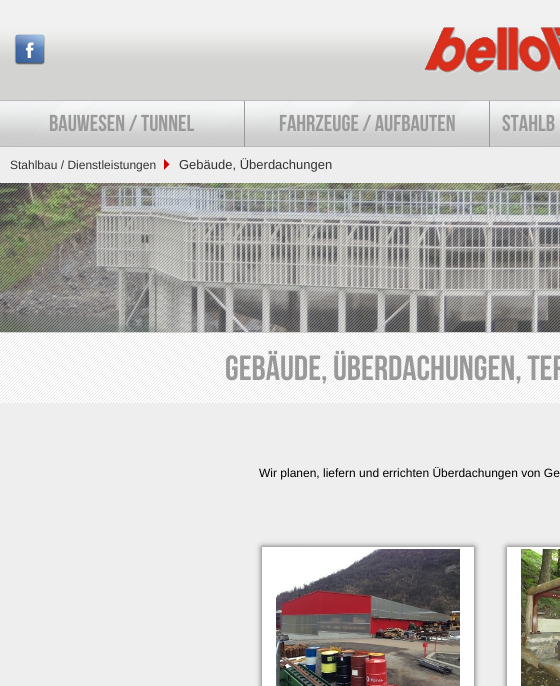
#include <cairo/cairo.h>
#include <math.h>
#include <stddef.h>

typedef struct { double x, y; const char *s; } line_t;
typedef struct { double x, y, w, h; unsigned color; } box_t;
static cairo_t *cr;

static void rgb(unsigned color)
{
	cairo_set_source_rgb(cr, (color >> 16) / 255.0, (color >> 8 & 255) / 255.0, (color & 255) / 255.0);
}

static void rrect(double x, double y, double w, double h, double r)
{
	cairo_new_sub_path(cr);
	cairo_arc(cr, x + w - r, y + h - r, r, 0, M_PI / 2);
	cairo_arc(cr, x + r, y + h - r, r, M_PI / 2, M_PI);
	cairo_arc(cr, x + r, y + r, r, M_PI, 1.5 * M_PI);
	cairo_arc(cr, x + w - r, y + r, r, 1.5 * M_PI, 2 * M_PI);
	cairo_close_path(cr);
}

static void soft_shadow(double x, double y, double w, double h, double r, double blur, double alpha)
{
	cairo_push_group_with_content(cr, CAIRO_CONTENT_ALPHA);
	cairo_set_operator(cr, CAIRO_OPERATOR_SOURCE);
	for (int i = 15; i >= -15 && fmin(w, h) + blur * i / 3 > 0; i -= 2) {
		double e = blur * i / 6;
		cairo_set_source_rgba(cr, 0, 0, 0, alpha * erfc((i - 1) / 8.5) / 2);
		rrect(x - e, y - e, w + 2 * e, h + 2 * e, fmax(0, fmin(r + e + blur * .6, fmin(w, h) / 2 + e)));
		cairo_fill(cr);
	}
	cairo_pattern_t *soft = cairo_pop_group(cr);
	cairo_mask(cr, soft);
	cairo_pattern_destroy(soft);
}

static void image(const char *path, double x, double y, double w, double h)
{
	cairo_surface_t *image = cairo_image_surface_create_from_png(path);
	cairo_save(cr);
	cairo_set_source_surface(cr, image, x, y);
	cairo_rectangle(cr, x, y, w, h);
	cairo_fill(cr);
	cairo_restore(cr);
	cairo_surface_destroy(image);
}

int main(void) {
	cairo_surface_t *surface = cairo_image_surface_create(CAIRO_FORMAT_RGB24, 560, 686);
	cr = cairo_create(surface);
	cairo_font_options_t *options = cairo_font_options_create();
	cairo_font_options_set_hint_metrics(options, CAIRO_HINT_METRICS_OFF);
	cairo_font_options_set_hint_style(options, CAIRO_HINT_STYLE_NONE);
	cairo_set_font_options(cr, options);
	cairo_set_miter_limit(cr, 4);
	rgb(0xffffff);
	cairo_paint(cr);
	image("img/1.png", 0, 101, 560, 45);
	image("img/2.png", 0, 0, 560, 101);
	image("img/3.png", 14, 34, 31, 31);
	image("img/4.png", 423, 27, 137, 47);
	image("img/5.png", 0, 101, 560, 46);
	{
		static const box_t items[] = {
			{244, 101, 1, 46, 0x999999},
			{489, 101, 1, 46, 0x999999},
			{0, 147, 560, 36, 0xeeeeee},
		};
		for (size_t i = 0; i < sizeof items / sizeof *items; i++) {
			rgb(items[i].color);
			cairo_rectangle(cr, items[i].x, items[i].y, items[i].w, items[i].h);
			cairo_fill(cr);
		}
	}
	image("img/6.png", 164, 159, 6, 11);
	cairo_rectangle(cr, 0, 332, 560, 354);
	cairo_fill(cr);
	image("img/7.png", 0, 183, 560, 149);
	image("img/8.png", 0, 183, 560, 150);
	image("img/9.png", 0, 333, 560, 70);
	rgb(0x555555);
	soft_shadow(262, 547, 212, 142, 0, 3, 1);
	rgb(0xffffff);
	cairo_rectangle(cr, 262, 547, 212, 139);
	cairo_fill(cr);
	image("img/10.png", 276, 549, 184, 137);
	rgb(0x555555);
	soft_shadow(507, 547, 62, 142, 0, 3, 1);
	rgb(0xffffff);
	cairo_rectangle(cr, 507, 547, 53, 139);
	cairo_fill(cr);
	image("img/11.png", 521, 549, 39, 137);
	cairo_select_font_face(cr, "Bebas Neue", CAIRO_FONT_SLANT_NORMAL, CAIRO_FONT_WEIGHT_NORMAL);
	cairo_set_font_size(cr, 23);
	rgb(0x999999);
	{
		static const line_t items[] = {
			{49, 131, "BAUWESEN / TUNNEL"},
			{279, 131, "FAHRZEUGE / AUFBAUTEN"},
			{502, 131, "STAHLB"},
		};
		for (size_t i = 0; i < sizeof items / sizeof *items; i++) {
			cairo_move_to(cr, items[i].x, items[i].y);
			cairo_show_text(cr, items[i].s);
		}
	}
	cairo_select_font_face(cr, "Liberation Sans", CAIRO_FONT_SLANT_NORMAL, CAIRO_FONT_WEIGHT_NORMAL);
	cairo_set_font_size(cr, 12);
	rgb(0x333333);
	cairo_move_to(cr, 10, 169);
	cairo_show_text(cr, "Stahlbau / Dienstleistungen");
	cairo_set_font_size(cr, 13);
	cairo_move_to(cr, 179, 169);
	cairo_show_text(cr, "Gebäude, Überdachungen");
	cairo_select_font_face(cr, "Bebas Neue", CAIRO_FONT_SLANT_NORMAL, CAIRO_FONT_WEIGHT_NORMAL);
	cairo_set_font_size(cr, 35);
	rgb(0x999999);
	cairo_move_to(cr, 225, 380);
	cairo_show_text(cr, "GEBÄUDE, ÜBERDACHUNGEN, TER");
	cairo_select_font_face(cr, "Liberation Sans", CAIRO_FONT_SLANT_NORMAL, CAIRO_FONT_WEIGHT_NORMAL);
	cairo_set_font_size(cr, 12);
	rgb(0x000000);
	cairo_move_to(cr, 259, 477);
	cairo_show_text(cr, "Wir planen, liefern und errichten Überdachungen von Ge");
	cairo_surface_write_to_png(surface, "page.png");
	cairo_font_options_destroy(options);
	cairo_destroy(cr);
	cairo_surface_destroy(surface);
	return 0;
}
